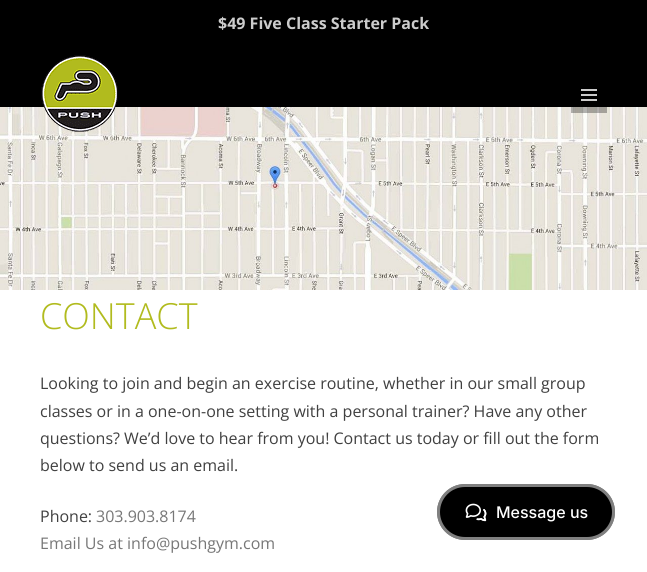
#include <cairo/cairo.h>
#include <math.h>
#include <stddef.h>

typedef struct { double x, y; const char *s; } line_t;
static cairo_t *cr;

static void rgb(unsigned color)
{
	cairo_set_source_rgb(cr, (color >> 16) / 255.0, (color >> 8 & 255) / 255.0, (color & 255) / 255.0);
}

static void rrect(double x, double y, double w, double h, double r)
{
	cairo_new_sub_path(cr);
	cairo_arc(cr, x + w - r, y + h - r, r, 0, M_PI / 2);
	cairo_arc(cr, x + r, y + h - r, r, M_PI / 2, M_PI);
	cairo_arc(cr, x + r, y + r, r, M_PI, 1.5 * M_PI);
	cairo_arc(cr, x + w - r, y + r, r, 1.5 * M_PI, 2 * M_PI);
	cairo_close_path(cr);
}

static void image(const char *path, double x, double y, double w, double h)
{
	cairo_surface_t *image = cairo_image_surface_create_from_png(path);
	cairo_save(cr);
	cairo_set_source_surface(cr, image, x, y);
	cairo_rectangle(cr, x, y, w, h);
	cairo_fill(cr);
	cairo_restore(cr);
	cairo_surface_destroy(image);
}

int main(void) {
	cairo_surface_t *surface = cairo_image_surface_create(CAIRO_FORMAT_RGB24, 647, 572);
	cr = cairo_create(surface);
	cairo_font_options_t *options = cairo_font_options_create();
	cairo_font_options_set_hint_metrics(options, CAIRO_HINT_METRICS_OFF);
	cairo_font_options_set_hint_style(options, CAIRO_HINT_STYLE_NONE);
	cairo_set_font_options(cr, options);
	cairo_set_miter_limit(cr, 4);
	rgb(0xffffff);
	cairo_paint(cr);
	rgb(0x000000);
	cairo_rectangle(cr, 0, 0, 647, 107);
	cairo_fill(cr);
	image("img/3.png", 0, 107, 647, 183);
	image("img/1.png", 41, 55, 77, 77);
	cairo_set_source_rgba(cr, 0, 0, 0, 0.3);
	cairo_rectangle(cr, 571, 107, 36, 6);
	cairo_fill(cr);
	image("img/2.png", 581, 89, 16, 12);
	rgb(0x000000);
	rrect(437, 484, 178, 56, 28);
	cairo_fill(cr);
	rrect(438.5, 485.5, 175, 53, 26.5);
	cairo_set_source_rgba(cr, 1, 1, 1, 0.5);
	cairo_set_line_width(cr, 3);
	cairo_stroke(cr);
	image("img/4.png", 465, 503, 22, 19);
	cairo_select_font_face(cr, "Open Sans", CAIRO_FONT_SLANT_NORMAL, CAIRO_FONT_WEIGHT_BOLD);
	cairo_set_font_size(cr, 16);
	rgb(0xcccccc);
	cairo_move_to(cr, 218, 29);
	cairo_show_text(cr, "$49 Five Class Starter Pack");
	cairo_select_font_face(cr, "Open Sans Light", CAIRO_FONT_SLANT_NORMAL, CAIRO_FONT_WEIGHT_NORMAL);
	cairo_set_font_size(cr, 36);
	rgb(0xb1bb1e);
	cairo_move_to(cr, 40, 329);
	cairo_show_text(cr, "CONTACT");
	cairo_select_font_face(cr, "Open Sans", CAIRO_FONT_SLANT_NORMAL, CAIRO_FONT_WEIGHT_NORMAL);
	cairo_set_font_size(cr, 16);
	rgb(0x404040);
	{
		static const line_t items[] = {
			{40, 389, "Looking to join and begin an exercise routine, whether in our small group"},
			{40, 417, "classes or in a one-on-one setting with a personal trainer? Have any other"},
			{40, 444, "questions? We’d love to hear from you! Contact us today or fill out the form"},
			{40, 471, "below to send us an email."},
			{40, 522, "Phone:"},
		};
		for (size_t i = 0; i < sizeof items / sizeof *items; i++) {
			cairo_move_to(cr, items[i].x, items[i].y);
			cairo_show_text(cr, items[i].s);
		}
	}
	rgb(0x777777);
	cairo_move_to(cr, 96, 522);
	cairo_show_text(cr, "303.903.8174");
	cairo_move_to(cr, 40, 549);
	cairo_show_text(cr, "Email Us at info@pushgym.com");
	cairo_select_font_face(cr, "Inter Medium", CAIRO_FONT_SLANT_NORMAL, CAIRO_FONT_WEIGHT_NORMAL);
	rgb(0xffffff);
	cairo_move_to(cr, 496, 518);
	cairo_show_text(cr, "Message us");
	cairo_surface_write_to_png(surface, "page.png");
	cairo_font_options_destroy(options);
	cairo_destroy(cr);
	cairo_surface_destroy(surface);
	return 0;
}
